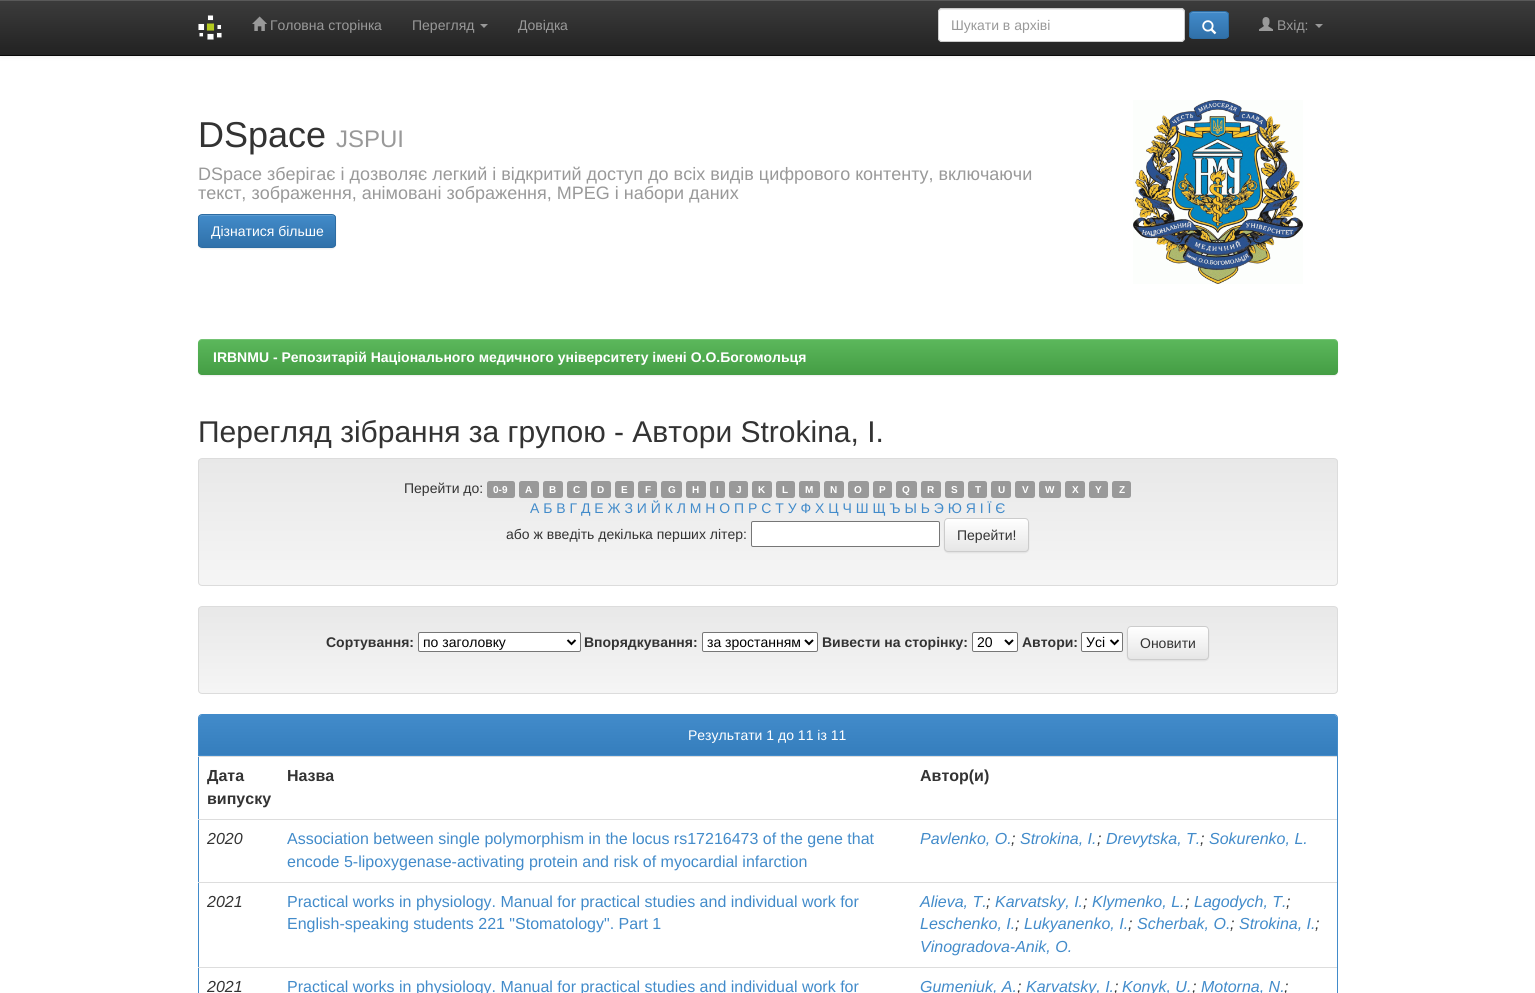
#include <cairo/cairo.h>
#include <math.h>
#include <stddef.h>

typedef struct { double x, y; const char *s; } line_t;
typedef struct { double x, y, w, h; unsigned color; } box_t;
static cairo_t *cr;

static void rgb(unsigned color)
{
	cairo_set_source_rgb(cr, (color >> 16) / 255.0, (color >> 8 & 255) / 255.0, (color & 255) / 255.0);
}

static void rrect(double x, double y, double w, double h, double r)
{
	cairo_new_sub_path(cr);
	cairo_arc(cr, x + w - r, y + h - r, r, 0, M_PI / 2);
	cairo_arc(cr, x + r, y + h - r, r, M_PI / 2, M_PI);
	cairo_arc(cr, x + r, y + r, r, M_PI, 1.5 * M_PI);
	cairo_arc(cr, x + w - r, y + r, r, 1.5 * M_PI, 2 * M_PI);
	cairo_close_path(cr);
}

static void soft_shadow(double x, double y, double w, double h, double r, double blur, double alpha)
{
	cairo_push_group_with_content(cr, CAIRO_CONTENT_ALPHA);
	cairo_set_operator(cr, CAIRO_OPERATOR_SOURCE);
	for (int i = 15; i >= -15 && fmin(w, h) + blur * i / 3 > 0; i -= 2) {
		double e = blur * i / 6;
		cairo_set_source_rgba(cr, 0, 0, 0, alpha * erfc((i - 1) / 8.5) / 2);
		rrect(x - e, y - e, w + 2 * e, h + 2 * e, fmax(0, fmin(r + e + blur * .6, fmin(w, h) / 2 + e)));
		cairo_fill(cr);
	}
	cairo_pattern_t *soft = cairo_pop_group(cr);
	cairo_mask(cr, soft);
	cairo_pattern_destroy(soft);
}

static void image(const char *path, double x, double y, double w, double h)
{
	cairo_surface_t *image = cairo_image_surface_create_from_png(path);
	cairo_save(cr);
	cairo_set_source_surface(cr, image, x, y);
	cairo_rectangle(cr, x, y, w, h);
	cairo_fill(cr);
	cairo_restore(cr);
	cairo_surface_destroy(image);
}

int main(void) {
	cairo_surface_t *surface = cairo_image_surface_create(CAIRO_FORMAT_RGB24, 1535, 993);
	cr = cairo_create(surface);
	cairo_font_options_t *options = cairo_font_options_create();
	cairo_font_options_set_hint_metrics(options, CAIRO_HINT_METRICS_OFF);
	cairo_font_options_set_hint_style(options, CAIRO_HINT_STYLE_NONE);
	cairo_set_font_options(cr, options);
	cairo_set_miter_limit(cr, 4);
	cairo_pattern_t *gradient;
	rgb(0xffffff);
	cairo_paint(cr);
	rgb(0x000000);
	soft_shadow(0, 1, 1535, 56, 0, 2.5, 0.07);
	gradient = cairo_pattern_create_linear(768, 0, 768, 55);
	cairo_pattern_add_color_stop_rgba(gradient, 0, 0.235, 0.235, 0.235, 1);
	cairo_pattern_add_color_stop_rgba(gradient, 1, 0.133, 0.133, 0.133, 1);
	cairo_set_source(cr, gradient);
	cairo_pattern_destroy(gradient);
	cairo_rectangle(cr, 0, 1, 1535, 54);
	cairo_fill(cr);
	rgb(0x595959);
	cairo_rectangle(cr, 0, 0, 1535, 1);
	cairo_fill(cr);
	rgb(0x080808);
	cairo_rectangle(cr, 0, 55, 1535, 1);
	cairo_fill(cr);
	image("img/1.png", 198, 15, 24, 25);
	image("img/2.png", 252, 16, 15, 15);
	rgb(0x999999);
	cairo_new_path(cr);
	cairo_move_to(cr, 480, 24);
	cairo_line_to(cr, 488, 24);
	cairo_line_to(cr, 484, 28);
	cairo_close_path(cr);
	cairo_fill(cr);
	rgb(0xffffff);
	rrect(938, 8, 247, 34, 4);
	cairo_fill(cr);
	rgb(0xececec);
	cairo_new_path(cr);
	cairo_move_to(cr, 942, 10);
	cairo_line_to(cr, 1182, 10);
	cairo_line_to(cr, 1184, 11);
	cairo_line_to(cr, 1184, 13);
	cairo_curve_to(cr, 1184, 11, 1183, 9, 1181, 9);
	cairo_line_to(cr, 942, 9);
	cairo_curve_to(cr, 940, 9, 939, 11, 939, 13);
	cairo_curve_to(cr, 939, 11, 940, 10, 942, 10);
	cairo_close_path(cr);
	cairo_fill(cr);
	rrect(938.5, 8.5, 246, 33, 3.5);
	rgb(0xcccccc);
	cairo_set_line_width(cr, 1);
	cairo_stroke(cr);
	cairo_save(cr);
	rrect(1189, 11, 40, 28, 4);
	cairo_clip(cr);
	gradient = cairo_pattern_create_linear(1209, 12, 1209, 38);
	cairo_pattern_add_color_stop_rgba(gradient, 0, 0.259, 0.545, 0.792, 1);
	cairo_pattern_add_color_stop_rgba(gradient, 1, 0.188, 0.443, 0.663, 1);
	cairo_set_source(cr, gradient);
	cairo_pattern_destroy(gradient);
	cairo_rectangle(cr, 1189, 12, 40, 26);
	cairo_fill(cr);
	cairo_restore(cr);
	rgb(0x5e9cd1);
	cairo_new_path(cr);
	cairo_move_to(cr, 1193, 13);
	cairo_line_to(cr, 1225, 13);
	cairo_curve_to(cr, 1227, 13, 1228, 14, 1228, 16);
	cairo_curve_to(cr, 1228, 11, 1224, 12, 1219.5, 12);
	cairo_line_to(cr, 1198.5, 12);
	cairo_curve_to(cr, 1194, 12, 1190, 11, 1190, 16);
	cairo_curve_to(cr, 1190, 14, 1191, 13, 1193, 13);
	cairo_close_path(cr);
	cairo_fill(cr);
	rrect(1189.5, 11.5, 39, 27, 3.5);
	rgb(0x2d6ca2);
	cairo_stroke(cr);
	image("img/3.png", 1202, 20, 15, 15);
	image("img/4.png", 1259, 17, 14, 14);
	rgb(0x999999);
	cairo_new_path(cr);
	cairo_move_to(cr, 1315, 24);
	cairo_line_to(cr, 1323, 24);
	cairo_line_to(cr, 1319, 28);
	cairo_close_path(cr);
	cairo_fill(cr);
	rgb(0x000000);
	soft_shadow(198, 215, 138, 34, 4, 0.5, 0.07);
	cairo_save(cr);
	rrect(198, 214, 138, 34, 4);
	cairo_clip(cr);
	gradient = cairo_pattern_create_linear(267, 215, 267, 247);
	cairo_pattern_add_color_stop_rgba(gradient, 0, 0.259, 0.545, 0.792, 1);
	cairo_pattern_add_color_stop_rgba(gradient, 1, 0.188, 0.443, 0.663, 1);
	cairo_set_source(cr, gradient);
	cairo_pattern_destroy(gradient);
	cairo_rectangle(cr, 198, 215, 138, 32);
	cairo_fill(cr);
	cairo_restore(cr);
	rgb(0x5e9cd1);
	cairo_new_path(cr);
	cairo_move_to(cr, 202, 216);
	cairo_line_to(cr, 332, 216);
	cairo_curve_to(cr, 334, 216, 335, 217, 335, 219);
	cairo_curve_to(cr, 335, 217, 335, 215, 333, 215);
	cairo_line_to(cr, 201, 215);
	cairo_curve_to(cr, 199, 215, 199, 217, 199, 219);
	cairo_curve_to(cr, 199, 217, 200, 216, 202, 216);
	cairo_close_path(cr);
	cairo_fill(cr);
	rrect(198.5, 214.5, 137, 33, 3.5);
	rgb(0x2d6ca2);
	cairo_stroke(cr);
	image("img/5.png", 1133, 100, 170, 184);
	rgb(0x000000);
	soft_shadow(198, 340, 1140, 36, 4, 0.5, 0.07);
	gradient = cairo_pattern_create_linear(768, 339, 768, 375);
	cairo_pattern_add_color_stop_rgba(gradient, 0, 0.361, 0.722, 0.361, 1);
	cairo_pattern_add_color_stop_rgba(gradient, 1, 0.267, 0.616, 0.267, 1);
	cairo_set_source(cr, gradient);
	cairo_pattern_destroy(gradient);
	rrect(198, 339, 1140, 36, 4);
	cairo_fill(cr);
	cairo_set_source_rgba(cr, 1, 1, 1, 0.15);
	cairo_new_path(cr);
	cairo_move_to(cr, 202, 340);
	cairo_line_to(cr, 1334, 340);
	cairo_curve_to(cr, 1336, 340, 1338, 342, 1338, 344);
	cairo_curve_to(cr, 1338, 341, 1337, 339, 1334, 339);
	cairo_line_to(cr, 202, 339);
	cairo_curve_to(cr, 199, 339, 198, 341, 198, 344);
	cairo_curve_to(cr, 198, 342, 200, 340, 202, 340);
	cairo_close_path(cr);
	cairo_fill(cr);
	cairo_save(cr);
	rrect(198, 458, 1140, 128, 4);
	cairo_clip(cr);
	gradient = cairo_pattern_create_linear(768, 459, 768, 585);
	cairo_pattern_add_color_stop_rgba(gradient, 0, 0.91, 0.91, 0.91, 1);
	cairo_pattern_add_color_stop_rgba(gradient, 1, 0.961, 0.961, 0.961, 1);
	cairo_set_source(cr, gradient);
	cairo_pattern_destroy(gradient);
	cairo_rectangle(cr, 198, 459, 1140, 126);
	cairo_fill(cr);
	cairo_restore(cr);
	rrect(198.5, 458.5, 1139, 127, 3.5);
	rgb(0xdcdcdc);
	cairo_stroke(cr);
	rgb(0x999999);
	rrect(487, 481, 28, 17, 2.5);
	cairo_fill(cr);
	rrect(519, 481, 20, 17, 2.5);
	cairo_fill(cr);
	rrect(543, 481, 20, 17, 2.5);
	cairo_fill(cr);
	rrect(567, 481, 20, 17, 2.5);
	cairo_fill(cr);
	rrect(591, 481, 20, 17, 2.5);
	cairo_fill(cr);
	rrect(615, 481, 19, 17, 2.5);
	cairo_fill(cr);
	rrect(638, 481, 19, 17, 2.5);
	cairo_fill(cr);
	rrect(661, 481, 21, 17, 2.5);
	cairo_fill(cr);
	rrect(686, 481, 20, 17, 2.5);
	cairo_fill(cr);
	rrect(710, 481, 15, 17, 2.5);
	cairo_fill(cr);
	rrect(729, 481, 19, 17, 2.5);
	cairo_fill(cr);
	rrect(752, 481, 20, 17, 2.5);
	cairo_fill(cr);
	rrect(776, 481, 19, 17, 2.5);
	cairo_fill(cr);
	rrect(799, 481, 21, 17, 2.5);
	cairo_fill(cr);
	rrect(824, 481, 20, 17, 2.5);
	cairo_fill(cr);
	rrect(848, 481, 21, 17, 2.5);
	cairo_fill(cr);
	rrect(873, 481, 19, 17, 2.5);
	cairo_fill(cr);
	rrect(896, 481, 21, 17, 2.5);
	cairo_fill(cr);
	rrect(921, 481, 20, 17, 2.5);
	cairo_fill(cr);
	rrect(945, 481, 19, 17, 2.5);
	cairo_fill(cr);
	rrect(968, 481, 19, 17, 2.5);
	cairo_fill(cr);
	rrect(991, 481, 20, 17, 2.5);
	cairo_fill(cr);
	rrect(1015, 481, 20, 17, 2.5);
	cairo_fill(cr);
	rrect(1039, 481, 22, 17, 2.5);
	cairo_fill(cr);
	rrect(1065, 481, 20, 17, 2.5);
	cairo_fill(cr);
	rrect(1089, 481, 19, 17, 2.5);
	cairo_fill(cr);
	rrect(1112, 481, 19, 17, 2.5);
	cairo_fill(cr);
	rgb(0xffffff);
	rrect(751.5, 521.5, 188, 25, 1.5);
	cairo_fill_preserve(cr);
	rgb(0x767676);
	cairo_stroke(cr);
	rgb(0x000000);
	soft_shadow(944, 519, 85, 34, 4, 0.5, 0.07);
	cairo_save(cr);
	rrect(944, 518, 85, 34, 4);
	cairo_clip(cr);
	gradient = cairo_pattern_create_linear(987, 519, 987, 551);
	cairo_pattern_add_color_stop_rgba(gradient, 0, 1, 1, 1, 1);
	cairo_pattern_add_color_stop_rgba(gradient, 1, 0.902, 0.902, 0.902, 1);
	cairo_set_source(cr, gradient);
	cairo_pattern_destroy(gradient);
	cairo_rectangle(cr, 944, 519, 85, 32);
	cairo_fill(cr);
	cairo_restore(cr);
	rrect(944.5, 518.5, 84, 33, 3.5);
	rgb(0xcccccc);
	cairo_stroke(cr);
	cairo_save(cr);
	rrect(198, 606, 1140, 88, 4);
	cairo_clip(cr);
	gradient = cairo_pattern_create_linear(768, 607, 768, 693);
	cairo_pattern_add_color_stop_rgba(gradient, 0, 0.91, 0.91, 0.91, 1);
	cairo_pattern_add_color_stop_rgba(gradient, 1, 0.961, 0.961, 0.961, 1);
	cairo_set_source(cr, gradient);
	cairo_pattern_destroy(gradient);
	cairo_rectangle(cr, 198, 607, 1140, 86);
	cairo_fill(cr);
	cairo_restore(cr);
	rrect(198.5, 606.5, 1139, 87, 3.5);
	rgb(0xdcdcdc);
	cairo_stroke(cr);
	rgb(0xffffff);
	rrect(418.5, 632.5, 162, 19, 1.5);
	cairo_fill_preserve(cr);
	rgb(0x767676);
	cairo_stroke(cr);
	cairo_new_path(cr);
	cairo_move_to(cr, 567.5, 640);
	cairo_line_to(cr, 571.5, 644);
	cairo_line_to(cr, 575.5, 640);
	rgb(0x000000);
	cairo_set_line_width(cr, 2);
	cairo_stroke(cr);
	rgb(0xffffff);
	rrect(702.5, 632.5, 115, 19, 1.5);
	cairo_fill_preserve(cr);
	rgb(0x767676);
	cairo_set_line_width(cr, 1);
	cairo_stroke(cr);
	cairo_new_path(cr);
	cairo_move_to(cr, 805, 640);
	cairo_line_to(cr, 809, 644);
	cairo_line_to(cr, 813, 640);
	rgb(0x000000);
	cairo_set_line_width(cr, 2);
	cairo_stroke(cr);
	rgb(0xffffff);
	rrect(972.5, 632.5, 45, 19, 1.5);
	cairo_fill_preserve(cr);
	rgb(0x767676);
	cairo_set_line_width(cr, 1);
	cairo_stroke(cr);
	cairo_new_path(cr);
	cairo_move_to(cr, 1005, 640);
	cairo_line_to(cr, 1009, 644);
	cairo_line_to(cr, 1013, 640);
	rgb(0x000000);
	cairo_set_line_width(cr, 2);
	cairo_stroke(cr);
	rgb(0xffffff);
	rrect(1081.5, 632.5, 41, 19, 1.5);
	cairo_fill_preserve(cr);
	rgb(0x767676);
	cairo_set_line_width(cr, 1);
	cairo_stroke(cr);
	cairo_new_path(cr);
	cairo_move_to(cr, 1110.5, 640);
	cairo_line_to(cr, 1114.5, 644);
	cairo_line_to(cr, 1118.5, 640);
	rgb(0x000000);
	cairo_set_line_width(cr, 2);
	cairo_stroke(cr);
	rgb(0x000000);
	soft_shadow(1127, 627, 82, 34, 4, 0.5, 0.07);
	cairo_save(cr);
	rrect(1127, 626, 82, 34, 4);
	cairo_clip(cr);
	gradient = cairo_pattern_create_linear(1168, 627, 1168, 659);
	cairo_pattern_add_color_stop_rgba(gradient, 0, 1, 1, 1, 1);
	cairo_pattern_add_color_stop_rgba(gradient, 1, 0.902, 0.902, 0.902, 1);
	cairo_set_source(cr, gradient);
	cairo_pattern_destroy(gradient);
	cairo_rectangle(cr, 1127, 627, 82, 32);
	cairo_fill(cr);
	cairo_restore(cr);
	rrect(1127.5, 626.5, 81, 33, 3.5);
	rgb(0xcccccc);
	cairo_set_line_width(cr, 1);
	cairo_stroke(cr);
	rrect(198.5, 714.5, 1139, 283, 3.5);
	rgb(0x428bca);
	cairo_stroke(cr);
	cairo_new_path(cr);
	cairo_move_to(cr, 202, 715);
	cairo_line_to(cr, 1334, 715);
	cairo_curve_to(cr, 1335.5, 715, 1337, 716.5, 1337, 718);
	cairo_line_to(cr, 1337, 756);
	cairo_line_to(cr, 199, 756);
	cairo_line_to(cr, 199, 718);
	cairo_curve_to(cr, 199, 716.5, 200.5, 715, 202, 715);
	cairo_close_path(cr);
	cairo_fill(cr);
	gradient = cairo_pattern_create_linear(768, 715, 768, 755);
	cairo_pattern_add_color_stop_rgba(gradient, 0, 0.259, 0.545, 0.792, 1);
	cairo_pattern_add_color_stop_rgba(gradient, 1, 0.208, 0.494, 0.741, 1);
	cairo_set_source(cr, gradient);
	cairo_pattern_destroy(gradient);
	cairo_new_path(cr);
	cairo_move_to(cr, 202, 715);
	cairo_line_to(cr, 1334, 715);
	cairo_curve_to(cr, 1335.5, 715, 1337, 716.5, 1337, 718);
	cairo_line_to(cr, 1337, 755);
	cairo_line_to(cr, 199, 755);
	cairo_line_to(cr, 199, 718);
	cairo_curve_to(cr, 199, 716.5, 200.5, 715, 202, 715);
	cairo_close_path(cr);
	cairo_fill(cr);
	{
		static const box_t items[] = {
			{198, 756, 1139, 1, 0xdddddd},
			{198, 819, 1139, 1, 0xdddddd},
			{198, 882, 1139, 1, 0xdddddd},
			{198, 967, 1139, 1, 0xdddddd},
		};
		for (size_t i = 0; i < sizeof items / sizeof *items; i++) {
			rgb(items[i].color);
			cairo_rectangle(cr, items[i].x, items[i].y, items[i].w, items[i].h);
			cairo_fill(cr);
		}
	}
	cairo_select_font_face(cr, "Liberation Sans", CAIRO_FONT_SLANT_NORMAL, CAIRO_FONT_WEIGHT_NORMAL);
	cairo_set_font_size(cr, 14);
	rgb(0x999999);
	{
		static const line_t items[] = {
			{270, 30, "Головна сторінка"},
			{412, 30, "Перегляд"},
			{518, 30, "Довідка"},
			{951, 30, "Шукати в архіві"},
			{1277, 30, "Вхід:"},
		};
		for (size_t i = 0; i < sizeof items / sizeof *items; i++) {
			cairo_move_to(cr, items[i].x, items[i].y);
			cairo_show_text(cr, items[i].s);
		}
	}
	cairo_set_font_size(cr, 36);
	rgb(0x333333);
	cairo_move_to(cr, 198, 147);
	cairo_show_text(cr, "DSpace");
	cairo_set_font_size(cr, 24);
	rgb(0x999999);
	cairo_move_to(cr, 336, 147);
	cairo_show_text(cr, "JSPUI");
	cairo_set_font_size(cr, 18);
	cairo_move_to(cr, 198, 180);
	cairo_show_text(cr, "DSpace зберігає і дозволяє легкий і відкритий доступ до всіх видів цифрового контенту, включаючи");
	cairo_move_to(cr, 198, 199);
	cairo_show_text(cr, "текст, зображення, анімовані зображення, MPEG і набори даних");
	cairo_set_font_size(cr, 14);
	rgb(0xffffff);
	cairo_move_to(cr, 211, 236);
	cairo_show_text(cr, "Дізнатися більше");
	cairo_select_font_face(cr, "Liberation Sans", CAIRO_FONT_SLANT_NORMAL, CAIRO_FONT_WEIGHT_BOLD);
	cairo_move_to(cr, 213, 362);
	cairo_show_text(cr, "IRBNMU - Репозитарій Національного медичного університету імені О.О.Богомольця");
	cairo_select_font_face(cr, "Liberation Sans", CAIRO_FONT_SLANT_NORMAL, CAIRO_FONT_WEIGHT_NORMAL);
	cairo_set_font_size(cr, 30);
	rgb(0x333333);
	cairo_move_to(cr, 198, 442);
	cairo_show_text(cr, "Перегляд зібрання за групою - Автори Strokina, I.");
	cairo_set_font_size(cr, 14);
	cairo_move_to(cr, 404, 493);
	cairo_show_text(cr, "Перейти до:");
	cairo_select_font_face(cr, "Liberation Sans", CAIRO_FONT_SLANT_NORMAL, CAIRO_FONT_WEIGHT_BOLD);
	cairo_set_font_size(cr, 10);
	rgb(0xffffff);
	{
		static const line_t items[] = {
			{493, 493, "0-9"},
			{525, 493, "A"},
			{549, 493, "B"},
			{573, 493, "C"},
			{597, 493, "D"},
			{621, 493, "E"},
			{645, 493, "F"},
			{668, 493, "G"},
			{692, 493, "H"},
			{716, 493, "I"},
			{736, 493, "J"},
			{758, 493, "K"},
			{782, 493, "L"},
			{805, 493, "M"},
			{830, 493, "N"},
			{854, 493, "O"},
			{879, 493, "P"},
			{902, 493, "Q"},
			{927, 493, "R"},
			{951, 493, "S"},
			{975, 493, "T"},
			{998, 493, "U"},
			{1022, 493, "V"},
			{1045, 493, "W"},
			{1072, 493, "X"},
			{1095, 493, "Y"},
			{1119, 493, "Z"},
		};
		for (size_t i = 0; i < sizeof items / sizeof *items; i++) {
			cairo_move_to(cr, items[i].x, items[i].y);
			cairo_show_text(cr, items[i].s);
		}
	}
	cairo_select_font_face(cr, "Liberation Sans", CAIRO_FONT_SLANT_NORMAL, CAIRO_FONT_WEIGHT_NORMAL);
	cairo_set_font_size(cr, 14);
	rgb(0x428bca);
	cairo_move_to(cr, 530, 513);
	cairo_show_text(cr, "А Б В Г Д Е Ж З И Й К Л М Н О П Р С Т У Ф Х Ц Ч Ш Щ Ъ Ы Ь Э Ю Я І Ї Є");
	rgb(0x333333);
	cairo_move_to(cr, 506, 539);
	cairo_show_text(cr, "або ж введіть декілька перших літер:");
	cairo_move_to(cr, 957, 540);
	cairo_show_text(cr, "Перейти!");
	cairo_select_font_face(cr, "Liberation Sans", CAIRO_FONT_SLANT_NORMAL, CAIRO_FONT_WEIGHT_BOLD);
	cairo_move_to(cr, 326, 647);
	cairo_show_text(cr, "Сортування:");
	cairo_select_font_face(cr, "Liberation Sans", CAIRO_FONT_SLANT_NORMAL, CAIRO_FONT_WEIGHT_NORMAL);
	rgb(0x000000);
	cairo_move_to(cr, 423, 647);
	cairo_show_text(cr, "по заголовку");
	cairo_select_font_face(cr, "Liberation Sans", CAIRO_FONT_SLANT_NORMAL, CAIRO_FONT_WEIGHT_BOLD);
	rgb(0x333333);
	cairo_move_to(cr, 584, 647);
	cairo_show_text(cr, "Впорядкування:");
	cairo_select_font_face(cr, "Liberation Sans", CAIRO_FONT_SLANT_NORMAL, CAIRO_FONT_WEIGHT_NORMAL);
	rgb(0x000000);
	cairo_move_to(cr, 707, 647);
	cairo_show_text(cr, "за зростанням");
	cairo_select_font_face(cr, "Liberation Sans", CAIRO_FONT_SLANT_NORMAL, CAIRO_FONT_WEIGHT_BOLD);
	rgb(0x333333);
	cairo_move_to(cr, 822, 647);
	cairo_show_text(cr, "Вивести на сторінку:");
	cairo_select_font_face(cr, "Liberation Sans", CAIRO_FONT_SLANT_NORMAL, CAIRO_FONT_WEIGHT_NORMAL);
	rgb(0x000000);
	cairo_move_to(cr, 977, 647);
	cairo_show_text(cr, "20");
	cairo_select_font_face(cr, "Liberation Sans", CAIRO_FONT_SLANT_NORMAL, CAIRO_FONT_WEIGHT_BOLD);
	rgb(0x333333);
	cairo_move_to(cr, 1022, 647);
	cairo_show_text(cr, "Автори:");
	cairo_select_font_face(cr, "Liberation Sans", CAIRO_FONT_SLANT_NORMAL, CAIRO_FONT_WEIGHT_NORMAL);
	rgb(0x000000);
	cairo_move_to(cr, 1086, 647);
	cairo_show_text(cr, "Усі");
	rgb(0x333333);
	cairo_move_to(cr, 1140, 648);
	cairo_show_text(cr, "Оновити");
	rgb(0xffffff);
	cairo_move_to(cr, 688, 740);
	cairo_show_text(cr, "Результати 1 до 11 із 11");
	cairo_select_font_face(cr, "Liberation Sans", CAIRO_FONT_SLANT_NORMAL, CAIRO_FONT_WEIGHT_BOLD);
	cairo_set_font_size(cr, 16);
	rgb(0x333333);
	{
		static const line_t items[] = {
			{207, 781, "Дата"},
			{207, 804, "випуску"},
			{287, 781, "Назва"},
			{920, 781, "Автор(и)"},
		};
		for (size_t i = 0; i < sizeof items / sizeof *items; i++) {
			cairo_move_to(cr, items[i].x, items[i].y);
			cairo_show_text(cr, items[i].s);
		}
	}
	cairo_select_font_face(cr, "Liberation Sans", CAIRO_FONT_SLANT_ITALIC, CAIRO_FONT_WEIGHT_NORMAL);
	cairo_move_to(cr, 207, 844);
	cairo_show_text(cr, "2020");
	cairo_select_font_face(cr, "Liberation Sans", CAIRO_FONT_SLANT_NORMAL, CAIRO_FONT_WEIGHT_NORMAL);
	rgb(0x428bca);
	cairo_move_to(cr, 287, 844);
	cairo_show_text(cr, "Association between single polymorphism in the locus rs17216473 of the gene that");
	cairo_move_to(cr, 287, 867);
	cairo_show_text(cr, "encode 5-lipoxygenase-activating protein and risk of myocardial infarction");
	cairo_select_font_face(cr, "Liberation Sans", CAIRO_FONT_SLANT_ITALIC, CAIRO_FONT_WEIGHT_NORMAL);
	cairo_move_to(cr, 920, 844);
	cairo_show_text(cr, "Pavlenko, O.");
	rgb(0x333333);
	cairo_move_to(cr, 1011, 844);
	cairo_show_text(cr, ";");
	rgb(0x428bca);
	cairo_move_to(cr, 1020, 844);
	cairo_show_text(cr, "Strokina, I.");
	rgb(0x333333);
	cairo_move_to(cr, 1097, 844);
	cairo_show_text(cr, ";");
	rgb(0x428bca);
	cairo_move_to(cr, 1106, 844);
	cairo_show_text(cr, "Drevytska, T.");
	rgb(0x333333);
	cairo_move_to(cr, 1200, 844);
	cairo_show_text(cr, ";");
	rgb(0x428bca);
	cairo_move_to(cr, 1209, 844);
	cairo_show_text(cr, "Sokurenko, L.");
	rgb(0x333333);
	cairo_move_to(cr, 207, 907);
	cairo_show_text(cr, "2021");
	cairo_select_font_face(cr, "Liberation Sans", CAIRO_FONT_SLANT_NORMAL, CAIRO_FONT_WEIGHT_NORMAL);
	rgb(0x428bca);
	cairo_move_to(cr, 287, 907);
	cairo_show_text(cr, "Practical works in physiology. Manual for practical studies and individual work for");
	cairo_move_to(cr, 287, 929);
	cairo_show_text(cr, "English-speaking students 221 \"Stomatology\". Part 1");
	cairo_select_font_face(cr, "Liberation Sans", CAIRO_FONT_SLANT_ITALIC, CAIRO_FONT_WEIGHT_NORMAL);
	cairo_move_to(cr, 920, 907);
	cairo_show_text(cr, "Alieva, T.");
	rgb(0x333333);
	cairo_move_to(cr, 986, 907);
	cairo_show_text(cr, ";");
	rgb(0x428bca);
	cairo_move_to(cr, 995, 907);
	cairo_show_text(cr, "Karvatsky, I.");
	rgb(0x333333);
	cairo_move_to(cr, 1083, 907);
	cairo_show_text(cr, ";");
	rgb(0x428bca);
	cairo_move_to(cr, 1092, 907);
	cairo_show_text(cr, "Klymenko, L.");
	rgb(0x333333);
	cairo_move_to(cr, 1185, 907);
	cairo_show_text(cr, ";");
	rgb(0x428bca);
	cairo_move_to(cr, 1194, 907);
	cairo_show_text(cr, "Lagodych, T.");
	rgb(0x333333);
	cairo_move_to(cr, 1286, 907);
	cairo_show_text(cr, ";");
	rgb(0x428bca);
	cairo_move_to(cr, 920, 929);
	cairo_show_text(cr, "Leschenko, I.");
	rgb(0x333333);
	cairo_move_to(cr, 1015, 929);
	cairo_show_text(cr, ";");
	rgb(0x428bca);
	cairo_move_to(cr, 1024, 929);
	cairo_show_text(cr, "Lukyanenko, I.");
	rgb(0x333333);
	cairo_move_to(cr, 1128, 929);
	cairo_show_text(cr, ";");
	rgb(0x428bca);
	cairo_move_to(cr, 1137, 929);
	cairo_show_text(cr, "Scherbak, O.");
	rgb(0x333333);
	cairo_move_to(cr, 1230, 929);
	cairo_show_text(cr, ";");
	rgb(0x428bca);
	cairo_move_to(cr, 1239, 929);
	cairo_show_text(cr, "Strokina, I.");
	rgb(0x333333);
	cairo_move_to(cr, 1315, 929);
	cairo_show_text(cr, ";");
	rgb(0x428bca);
	cairo_move_to(cr, 920, 952);
	cairo_show_text(cr, "Vinogradova-Anik, O.");
	rgb(0x333333);
	cairo_move_to(cr, 207, 992);
	cairo_show_text(cr, "2021");
	cairo_select_font_face(cr, "Liberation Sans", CAIRO_FONT_SLANT_NORMAL, CAIRO_FONT_WEIGHT_NORMAL);
	rgb(0x428bca);
	cairo_move_to(cr, 287, 992);
	cairo_show_text(cr, "Practical works in physiology. Manual for practical studies and individual work for");
	cairo_select_font_face(cr, "Liberation Sans", CAIRO_FONT_SLANT_ITALIC, CAIRO_FONT_WEIGHT_NORMAL);
	cairo_move_to(cr, 920, 992);
	cairo_show_text(cr, "Gumeniuk, A.");
	rgb(0x333333);
	cairo_move_to(cr, 1017, 992);
	cairo_show_text(cr, ";");
	rgb(0x428bca);
	cairo_move_to(cr, 1026, 992);
	cairo_show_text(cr, "Karvatsky, I.");
	rgb(0x333333);
	cairo_move_to(cr, 1114, 992);
	cairo_show_text(cr, ";");
	rgb(0x428bca);
	cairo_move_to(cr, 1122, 992);
	cairo_show_text(cr, "Konyk, U.");
	rgb(0x333333);
	cairo_move_to(cr, 1192, 992);
	cairo_show_text(cr, ";");
	rgb(0x428bca);
	cairo_move_to(cr, 1201, 992);
	cairo_show_text(cr, "Motorna, N.");
	rgb(0x333333);
	cairo_move_to(cr, 1284, 992);
	cairo_show_text(cr, ";");
	cairo_surface_write_to_png(surface, "page.png");
	cairo_font_options_destroy(options);
	cairo_destroy(cr);
	cairo_surface_destroy(surface);
	return 0;
}
